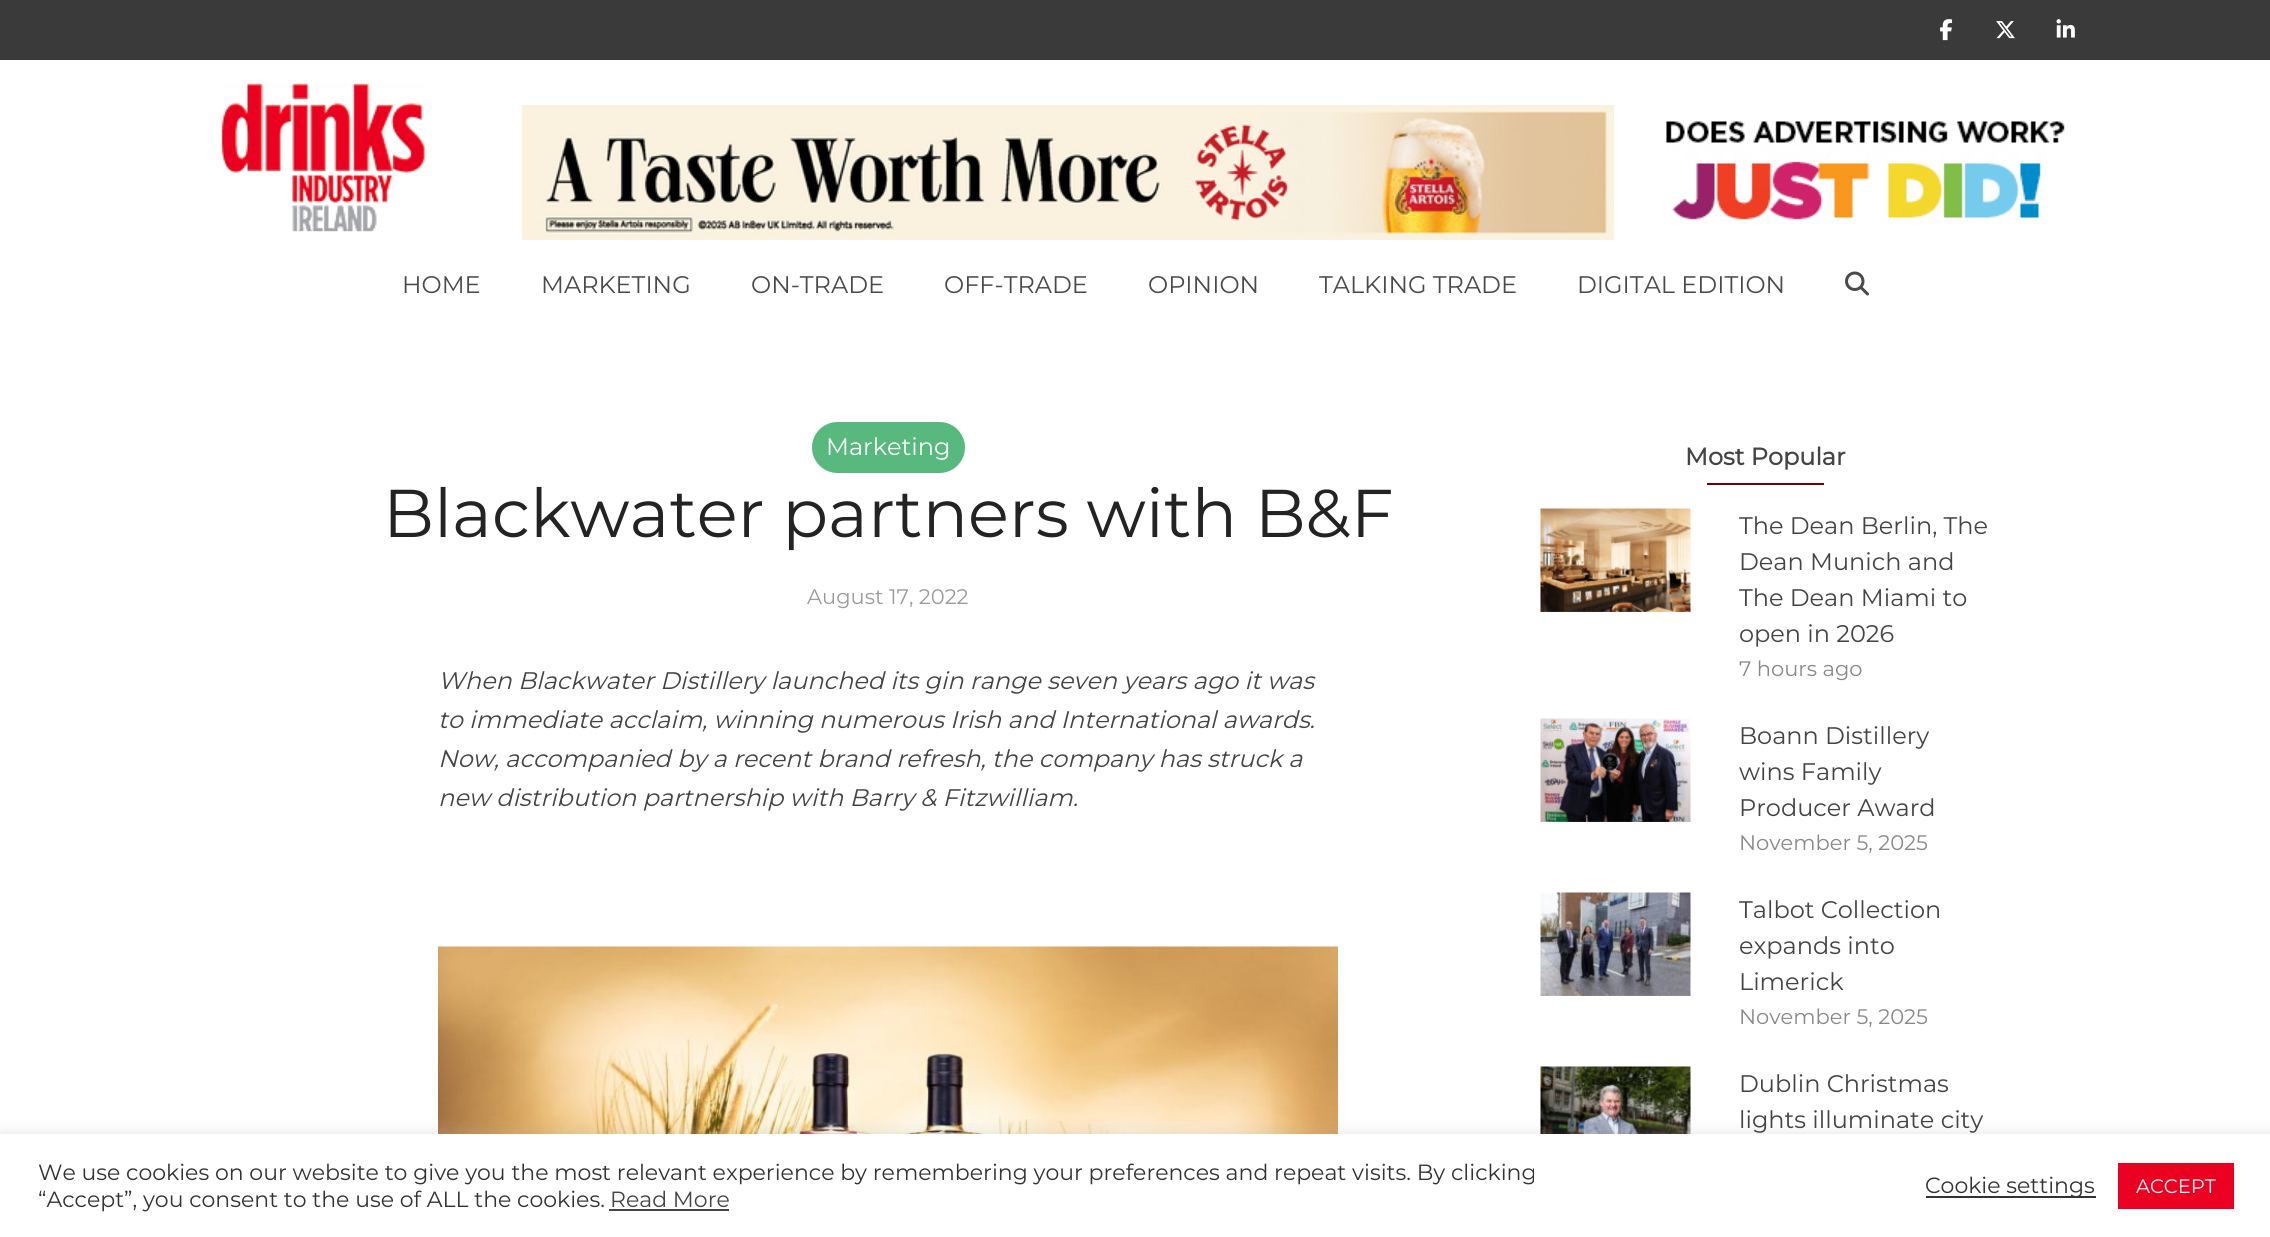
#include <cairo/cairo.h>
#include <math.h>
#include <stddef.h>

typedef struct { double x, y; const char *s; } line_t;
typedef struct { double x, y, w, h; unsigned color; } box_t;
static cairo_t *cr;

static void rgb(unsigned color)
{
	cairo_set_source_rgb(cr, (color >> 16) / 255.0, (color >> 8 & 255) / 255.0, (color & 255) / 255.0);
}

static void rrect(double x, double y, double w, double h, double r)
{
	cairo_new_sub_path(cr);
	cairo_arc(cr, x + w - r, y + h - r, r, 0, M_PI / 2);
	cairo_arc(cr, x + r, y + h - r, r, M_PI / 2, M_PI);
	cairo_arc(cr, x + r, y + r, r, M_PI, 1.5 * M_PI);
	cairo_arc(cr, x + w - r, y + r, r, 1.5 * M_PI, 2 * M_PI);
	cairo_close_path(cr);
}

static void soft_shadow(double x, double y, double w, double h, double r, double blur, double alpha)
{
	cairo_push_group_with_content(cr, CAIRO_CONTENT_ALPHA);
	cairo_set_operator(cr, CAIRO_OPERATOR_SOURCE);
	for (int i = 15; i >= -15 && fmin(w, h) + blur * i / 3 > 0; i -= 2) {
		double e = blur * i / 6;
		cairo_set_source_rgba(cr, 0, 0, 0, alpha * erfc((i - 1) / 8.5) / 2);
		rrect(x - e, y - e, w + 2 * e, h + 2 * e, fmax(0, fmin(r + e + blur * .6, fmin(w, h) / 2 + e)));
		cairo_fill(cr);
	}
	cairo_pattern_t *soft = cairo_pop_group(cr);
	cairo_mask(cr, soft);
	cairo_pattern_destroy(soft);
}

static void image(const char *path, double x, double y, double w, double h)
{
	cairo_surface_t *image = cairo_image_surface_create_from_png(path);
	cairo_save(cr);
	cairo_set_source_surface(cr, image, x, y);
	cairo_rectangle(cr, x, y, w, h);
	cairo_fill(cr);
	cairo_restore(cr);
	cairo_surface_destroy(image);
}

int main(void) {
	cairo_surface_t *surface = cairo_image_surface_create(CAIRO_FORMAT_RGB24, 2270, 1237);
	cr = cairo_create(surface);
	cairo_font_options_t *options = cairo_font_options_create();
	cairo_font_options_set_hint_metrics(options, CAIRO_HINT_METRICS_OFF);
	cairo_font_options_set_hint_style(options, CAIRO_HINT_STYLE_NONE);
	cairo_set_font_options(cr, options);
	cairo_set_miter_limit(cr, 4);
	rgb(0xffffff);
	cairo_paint(cr);
	rgb(0x3a3a3a);
	cairo_rectangle(cr, 0, 0, 2270, 60);
	cairo_fill(cr);
	image("img/1.png", 1940, 19, 13, 22);
	image("img/2.png", 1996, 21, 19, 18);
	image("img/3.png", 2056, 19, 19, 19);
	image("img/4.png", 221, 83, 204, 149);
	image("img/5.png", 522, 105, 1092, 135);
	image("img/6.png", 1666, 121, 399, 102);
	image("img/7.png", 1845, 271, 24, 25);
	rgb(0x58b97e);
	rrect(812, 422, 153, 51, 25.5);
	cairo_fill(cr);
	image("img/8.png", 438, 946, 900, 188);
	rgb(0x720000);
	cairo_rectangle(cr, 1707, 483, 117, 2);
	cairo_fill(cr);
	image("img/9.png", 1540, 508, 151, 104);
	image("img/10.png", 1540, 718, 151, 104);
	image("img/11.png", 1540, 892, 151, 104);
	image("img/12.png", 1540, 1066, 151, 68);
	rgb(0xacabab);
	soft_shadow(0, 1133, 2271, 103, 0, 7.5, 0.3);
	{
		static const box_t items[] = {
			{0, 1134, 2270, 103, 0xffffff},
			{609, 1209, 120, 2, 0x444444},
			{1926, 1196, 170, 2, 0x333333},
			{2118, 1163, 116, 46, 0xec0021},
		};
		for (size_t i = 0; i < sizeof items / sizeof *items; i++) {
			rgb(items[i].color);
			cairo_rectangle(cr, items[i].x, items[i].y, items[i].w, items[i].h);
			cairo_fill(cr);
		}
	}
	cairo_select_font_face(cr, "Montserrat Thin", CAIRO_FONT_SLANT_NORMAL, CAIRO_FONT_WEIGHT_NORMAL);
	cairo_set_font_size(cr, 24);
	rgb(0x4a4a4a);
	{
		static const line_t items[] = {
			{402, 293, "HOME"},
			{541, 293, "MARKETING"},
			{751, 293, "ON-TRADE"},
			{944, 293, "OFF-TRADE"},
			{1148, 293, "OPINION"},
			{1319, 293, "TALKING TRADE"},
			{1577, 293, "DIGITAL EDITION"},
		};
		for (size_t i = 0; i < sizeof items / sizeof *items; i++) {
			cairo_move_to(cr, items[i].x, items[i].y);
			cairo_show_text(cr, items[i].s);
		}
	}
	rgb(0xffffff);
	cairo_move_to(cr, 826, 455);
	cairo_show_text(cr, "Marketing");
	cairo_set_font_size(cr, 67.5);
	rgb(0x232323);
	cairo_move_to(cr, 383, 537);
	cairo_show_text(cr, "Blackwater partners with B&F");
	cairo_set_font_size(cr, 21);
	rgb(0x9b9b9b);
	cairo_move_to(cr, 807, 604);
	cairo_show_text(cr, "August 17, 2022");
	cairo_select_font_face(cr, "Montserrat Thin", CAIRO_FONT_SLANT_ITALIC, CAIRO_FONT_WEIGHT_NORMAL);
	cairo_set_font_size(cr, 24);
	rgb(0x444444);
	{
		static const line_t items[] = {
			{438, 689, "When Blackwater Distillery launched its gin range seven years ago it was"},
			{438, 728, "to immediate acclaim, winning numerous Irish and International awards."},
			{438, 767, "Now, accompanied by a recent brand refresh, the company has struck a"},
			{438, 806, "new distribution partnership with Barry & Fitzwilliam."},
		};
		for (size_t i = 0; i < sizeof items / sizeof *items; i++) {
			cairo_move_to(cr, items[i].x, items[i].y);
			cairo_show_text(cr, items[i].s);
		}
	}
	cairo_select_font_face(cr, "Montserrat", CAIRO_FONT_SLANT_NORMAL, CAIRO_FONT_WEIGHT_BOLD);
	cairo_move_to(cr, 1685, 465);
	cairo_show_text(cr, "Most Popular");
	cairo_select_font_face(cr, "Montserrat Thin", CAIRO_FONT_SLANT_NORMAL, CAIRO_FONT_WEIGHT_NORMAL);
	{
		static const line_t items[] = {
			{1739, 534, "The Dean Berlin, The"},
			{1739, 570, "Dean Munich and"},
			{1739, 606, "The Dean Miami to"},
			{1739, 642, "open in 2026"},
		};
		for (size_t i = 0; i < sizeof items / sizeof *items; i++) {
			cairo_move_to(cr, items[i].x, items[i].y);
			cairo_show_text(cr, items[i].s);
		}
	}
	cairo_set_font_size(cr, 21);
	rgb(0x898989);
	cairo_move_to(cr, 1739, 676);
	cairo_show_text(cr, "7 hours ago");
	cairo_set_font_size(cr, 24);
	rgb(0x444444);
	{
		static const line_t items[] = {
			{1739, 744, "Boann Distillery"},
			{1739, 780, "wins Family"},
			{1739, 816, "Producer Award"},
		};
		for (size_t i = 0; i < sizeof items / sizeof *items; i++) {
			cairo_move_to(cr, items[i].x, items[i].y);
			cairo_show_text(cr, items[i].s);
		}
	}
	cairo_set_font_size(cr, 21);
	rgb(0x898989);
	cairo_move_to(cr, 1739, 850);
	cairo_show_text(cr, "November 5, 2025");
	cairo_set_font_size(cr, 24);
	rgb(0x444444);
	{
		static const line_t items[] = {
			{1739, 918, "Talbot Collection"},
			{1739, 954, "expands into"},
			{1739, 990, "Limerick"},
		};
		for (size_t i = 0; i < sizeof items / sizeof *items; i++) {
			cairo_move_to(cr, items[i].x, items[i].y);
			cairo_show_text(cr, items[i].s);
		}
	}
	cairo_set_font_size(cr, 21);
	rgb(0x898989);
	cairo_move_to(cr, 1739, 1024);
	cairo_show_text(cr, "November 5, 2025");
	cairo_set_font_size(cr, 24);
	rgb(0x444444);
	cairo_move_to(cr, 1739, 1092);
	cairo_show_text(cr, "Dublin Christmas");
	cairo_move_to(cr, 1739, 1128);
	cairo_show_text(cr, "lights illuminate city");
	cairo_set_font_size(cr, 22);
	rgb(0x333333);
	cairo_move_to(cr, 38, 1180);
	cairo_show_text(cr, "We use cookies on our website to give you the most relevant experience by remembering your preferences and repeat visits. By clicking");
	cairo_move_to(cr, 38, 1207);
	cairo_show_text(cr, "“Accept”, you consent to the use of ALL the cookies.");
	rgb(0x444444);
	cairo_move_to(cr, 610, 1207);
	cairo_show_text(cr, "Read More");
	rgb(0x333333);
	cairo_move_to(cr, 1925, 1193);
	cairo_show_text(cr, "Cookie settings");
	cairo_set_font_size(cr, 19.5);
	rgb(0xffffff);
	cairo_move_to(cr, 2136, 1193);
	cairo_show_text(cr, "ACCEPT");
	cairo_surface_write_to_png(surface, "page.png");
	cairo_font_options_destroy(options);
	cairo_destroy(cr);
	cairo_surface_destroy(surface);
	return 0;
}
